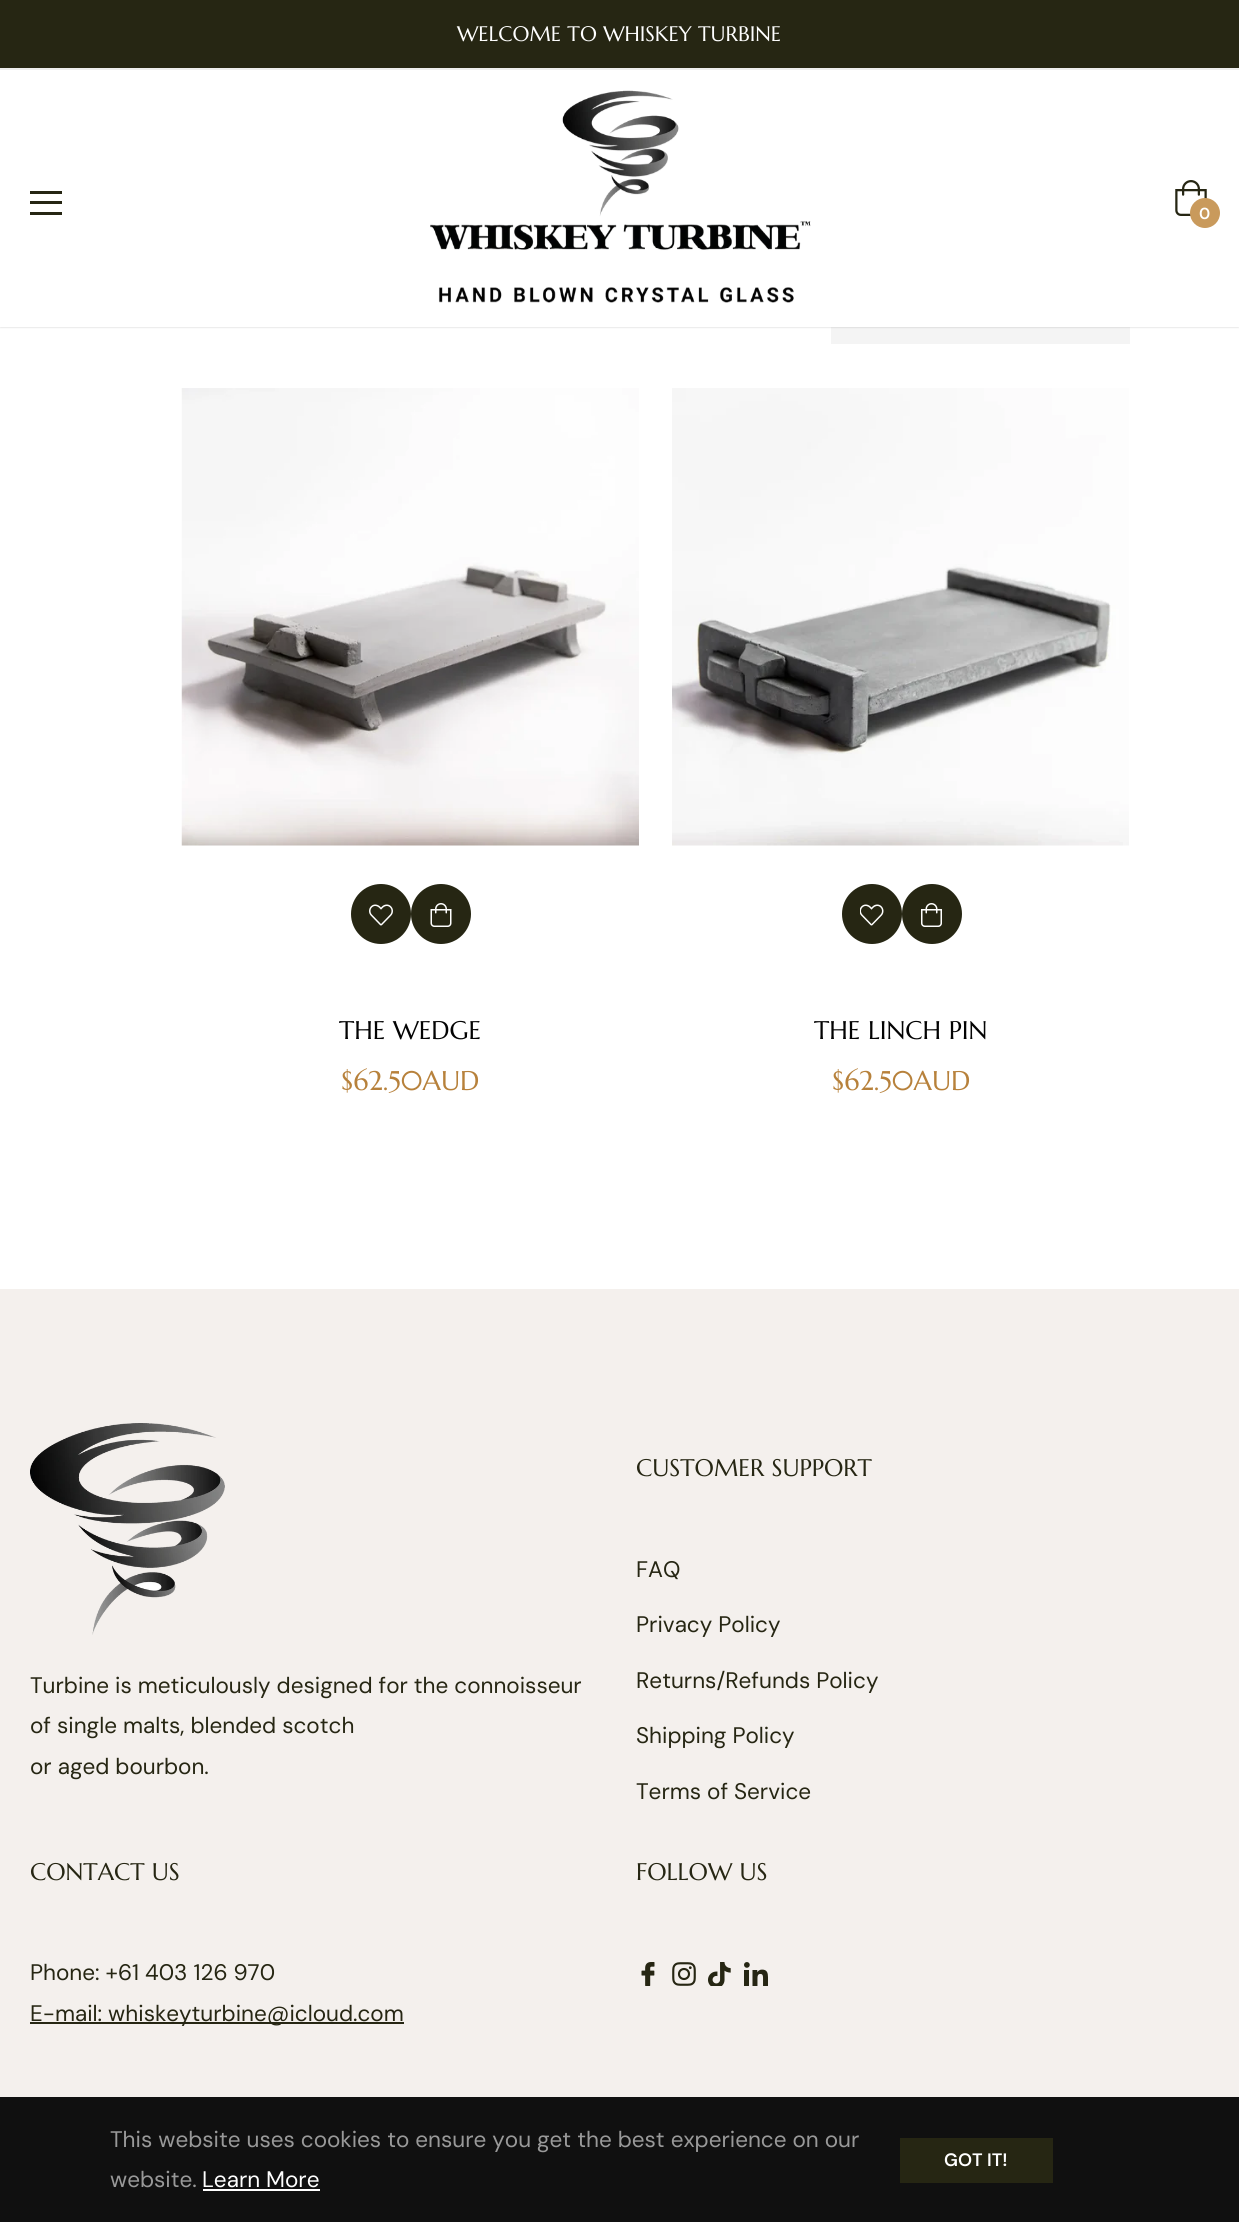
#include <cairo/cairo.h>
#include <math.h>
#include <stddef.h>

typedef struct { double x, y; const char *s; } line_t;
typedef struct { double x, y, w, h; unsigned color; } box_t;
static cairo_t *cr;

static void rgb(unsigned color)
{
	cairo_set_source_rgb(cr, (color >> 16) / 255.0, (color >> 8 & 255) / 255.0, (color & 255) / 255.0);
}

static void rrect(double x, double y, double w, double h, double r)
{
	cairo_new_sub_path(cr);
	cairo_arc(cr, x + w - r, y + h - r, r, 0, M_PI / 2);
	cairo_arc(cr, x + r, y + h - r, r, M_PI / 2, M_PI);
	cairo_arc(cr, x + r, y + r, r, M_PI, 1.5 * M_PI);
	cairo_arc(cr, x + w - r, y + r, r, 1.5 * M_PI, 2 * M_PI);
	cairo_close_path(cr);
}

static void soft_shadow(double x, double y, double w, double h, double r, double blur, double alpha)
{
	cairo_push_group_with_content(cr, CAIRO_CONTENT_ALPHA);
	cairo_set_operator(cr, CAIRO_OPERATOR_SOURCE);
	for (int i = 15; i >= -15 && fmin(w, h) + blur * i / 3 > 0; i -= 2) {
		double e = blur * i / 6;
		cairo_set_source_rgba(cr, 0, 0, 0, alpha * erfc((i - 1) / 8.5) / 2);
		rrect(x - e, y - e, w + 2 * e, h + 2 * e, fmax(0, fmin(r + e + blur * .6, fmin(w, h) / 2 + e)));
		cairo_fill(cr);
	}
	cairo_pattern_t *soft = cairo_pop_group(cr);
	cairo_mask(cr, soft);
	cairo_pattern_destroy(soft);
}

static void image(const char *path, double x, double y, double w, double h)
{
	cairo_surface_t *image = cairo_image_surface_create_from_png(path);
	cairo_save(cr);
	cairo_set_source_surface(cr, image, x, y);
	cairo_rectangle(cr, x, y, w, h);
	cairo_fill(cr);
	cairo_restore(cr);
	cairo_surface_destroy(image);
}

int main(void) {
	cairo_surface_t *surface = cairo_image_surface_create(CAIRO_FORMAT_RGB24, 1239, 2222);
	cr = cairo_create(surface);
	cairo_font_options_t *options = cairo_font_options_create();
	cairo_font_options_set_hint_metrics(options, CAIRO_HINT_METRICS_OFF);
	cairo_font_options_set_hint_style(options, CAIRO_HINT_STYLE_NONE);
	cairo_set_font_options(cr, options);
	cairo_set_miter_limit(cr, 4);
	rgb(0xffffff);
	cairo_paint(cr);
	rgb(0xf4f4f4);
	cairo_rectangle(cr, 831, 327, 299, 17);
	cairo_fill(cr);
	rgb(0x000000);
	soft_shadow(0, 0, 1239, 327, 0, 1, 0.2);
	{
		static const box_t items[] = {
			{0, 70, 1239, 257, 0xffffff},
			{0, 0, 1239, 68, 0x262613},
			{0, 68, 1239, 2, 0xeeeeee},
			{30, 191, 32, 3, 0x262613},
			{30, 201, 32, 3, 0x262613},
			{30, 212, 32, 3, 0x262613},
		};
		for (size_t i = 0; i < sizeof items / sizeof *items; i++) {
			rgb(items[i].color);
			cairo_rectangle(cr, items[i].x, items[i].y, items[i].w, items[i].h);
			cairo_fill(cr);
		}
	}
	image("img/1.png", 430, 90, 381, 213);
	image("img/2.png", 1175, 180, 32, 36);
	rgb(0xc99a5c);
	cairo_arc(cr, 1205, 213, 15, 0, 2 * M_PI);
	cairo_fill(cr);
	image("img/3.png", 181, 388, 458, 458);
	rgb(0x262613);
	cairo_arc(cr, 381, 914, 30, 0, 2 * M_PI);
	cairo_fill(cr);
	image("img/4.png", 369, 904, 24, 22);
	cairo_arc(cr, 441, 914, 30, 0, 2 * M_PI);
	cairo_fill(cr);
	image("img/5.png", 430, 903, 22, 24);
	image("img/6.png", 672, 388, 457, 458);
	cairo_arc(cr, 872, 914, 30, 0, 2 * M_PI);
	cairo_fill(cr);
	image("img/7.png", 860, 904, 24, 22);
	cairo_arc(cr, 932, 914, 30, 0, 2 * M_PI);
	cairo_fill(cr);
	image("img/8.png", 921, 903, 21, 24);
	rgb(0xf4f0ed);
	cairo_rectangle(cr, 0, 1289, 1239, 808);
	cairo_fill(cr);
	image("img/9.png", 30, 1423, 195, 212);
	rgb(0x262613);
	cairo_rectangle(cr, 30, 2022, 374, 2);
	cairo_fill(cr);
	image("img/10.png", 641, 1962, 14, 24);
	image("img/11.png", 672, 1962, 24, 24);
	image("img/12.png", 708, 1962, 23, 24);
	image("img/13.png", 744, 1962, 24, 24);
	{
		static const box_t items[] = {
			{0, 2097, 1239, 125, 0x101010},
			{203, 2189, 117, 2, 0xffffff},
			{900, 2138, 153, 45, 0x262613},
		};
		for (size_t i = 0; i < sizeof items / sizeof *items; i++) {
			rgb(items[i].color);
			cairo_rectangle(cr, items[i].x, items[i].y, items[i].w, items[i].h);
			cairo_fill(cr);
		}
	}
	cairo_select_font_face(cr, "Marcellus", CAIRO_FONT_SLANT_NORMAL, CAIRO_FONT_WEIGHT_NORMAL);
	cairo_set_font_size(cr, 21);
	rgb(0xffffff);
	cairo_move_to(cr, 457, 41);
	cairo_show_text(cr, "WELCOME TO WHISKEY TURBINE");
	cairo_select_font_face(cr, "DM Sans SemiBold", CAIRO_FONT_SLANT_NORMAL, CAIRO_FONT_WEIGHT_NORMAL);
	cairo_set_font_size(cr, 16);
	cairo_move_to(cr, 1199, 219);
	cairo_show_text(cr, "0");
	cairo_select_font_face(cr, "Marcellus", CAIRO_FONT_SLANT_NORMAL, CAIRO_FONT_WEIGHT_NORMAL);
	cairo_set_font_size(cr, 25.5);
	rgb(0x030303);
	cairo_move_to(cr, 339, 1039);
	cairo_show_text(cr, "THE WEDGE");
	cairo_set_font_size(cr, 27);
	rgb(0xb7813b);
	cairo_move_to(cr, 341, 1090);
	cairo_show_text(cr, "$62.50AUD");
	cairo_set_font_size(cr, 25.5);
	rgb(0x030303);
	cairo_move_to(cr, 814, 1039);
	cairo_show_text(cr, "THE LINCH PIN");
	cairo_set_font_size(cr, 27);
	rgb(0xb7813b);
	cairo_move_to(cr, 832, 1090);
	cairo_show_text(cr, "$62.50AUD");
	cairo_select_font_face(cr, "DM Sans", CAIRO_FONT_SLANT_NORMAL, CAIRO_FONT_WEIGHT_NORMAL);
	cairo_set_font_size(cr, 22.5);
	rgb(0x262613);
	{
		static const line_t items[] = {
			{30, 1693, "Turbine is meticulously designed for the connoisseur"},
			{30, 1733, "of single malts, blended scotch"},
			{30, 1774, "or aged bourbon."},
		};
		for (size_t i = 0; i < sizeof items / sizeof *items; i++) {
			cairo_move_to(cr, items[i].x, items[i].y);
			cairo_show_text(cr, items[i].s);
		}
	}
	cairo_select_font_face(cr, "Marcellus", CAIRO_FONT_SLANT_NORMAL, CAIRO_FONT_WEIGHT_NORMAL);
	cairo_set_font_size(cr, 24);
	cairo_move_to(cr, 636, 1476);
	cairo_show_text(cr, "CUSTOMER SUPPORT");
	cairo_select_font_face(cr, "DM Sans", CAIRO_FONT_SLANT_NORMAL, CAIRO_FONT_WEIGHT_NORMAL);
	cairo_set_font_size(cr, 22.5);
	{
		static const line_t items[] = {
			{636, 1577, "FAQ"},
			{636, 1632, "Privacy Policy"},
			{636, 1688, "Returns/Refunds Policy"},
			{636, 1743, "Shipping Policy"},
			{636, 1799, "Terms of Service"},
		};
		for (size_t i = 0; i < sizeof items / sizeof *items; i++) {
			cairo_move_to(cr, items[i].x, items[i].y);
			cairo_show_text(cr, items[i].s);
		}
	}
	cairo_select_font_face(cr, "Marcellus", CAIRO_FONT_SLANT_NORMAL, CAIRO_FONT_WEIGHT_NORMAL);
	cairo_set_font_size(cr, 24);
	cairo_move_to(cr, 30, 1880);
	cairo_show_text(cr, "CONTACT US");
	cairo_select_font_face(cr, "DM Sans", CAIRO_FONT_SLANT_NORMAL, CAIRO_FONT_WEIGHT_NORMAL);
	cairo_set_font_size(cr, 22.5);
	cairo_move_to(cr, 30, 1980);
	cairo_show_text(cr, "Phone: +61 403 126 970");
	cairo_move_to(cr, 30, 2021);
	cairo_show_text(cr, "E-mail: whiskeyturbine@icloud.com");
	cairo_select_font_face(cr, "Marcellus", CAIRO_FONT_SLANT_NORMAL, CAIRO_FONT_WEIGHT_NORMAL);
	cairo_set_font_size(cr, 24);
	cairo_move_to(cr, 636, 1880);
	cairo_show_text(cr, "FOLLOW US");
	cairo_select_font_face(cr, "DM Sans", CAIRO_FONT_SLANT_NORMAL, CAIRO_FONT_WEIGHT_NORMAL);
	cairo_set_font_size(cr, 22.5);
	rgb(0x999999);
	cairo_move_to(cr, 110, 2147);
	cairo_show_text(cr, "This website uses cookies to ensure you get the best experience on our");
	cairo_move_to(cr, 110, 2187);
	cairo_show_text(cr, "website.");
	rgb(0xffffff);
	cairo_move_to(cr, 202, 2187);
	cairo_show_text(cr, "Learn More");
	cairo_select_font_face(cr, "DM Sans SemiBold", CAIRO_FONT_SLANT_NORMAL, CAIRO_FONT_WEIGHT_NORMAL);
	cairo_set_font_size(cr, 18);
	cairo_move_to(cr, 944, 2166);
	cairo_show_text(cr, "GOT IT!");
	cairo_surface_write_to_png(surface, "page.png");
	cairo_font_options_destroy(options);
	cairo_destroy(cr);
	cairo_surface_destroy(surface);
	return 0;
}
